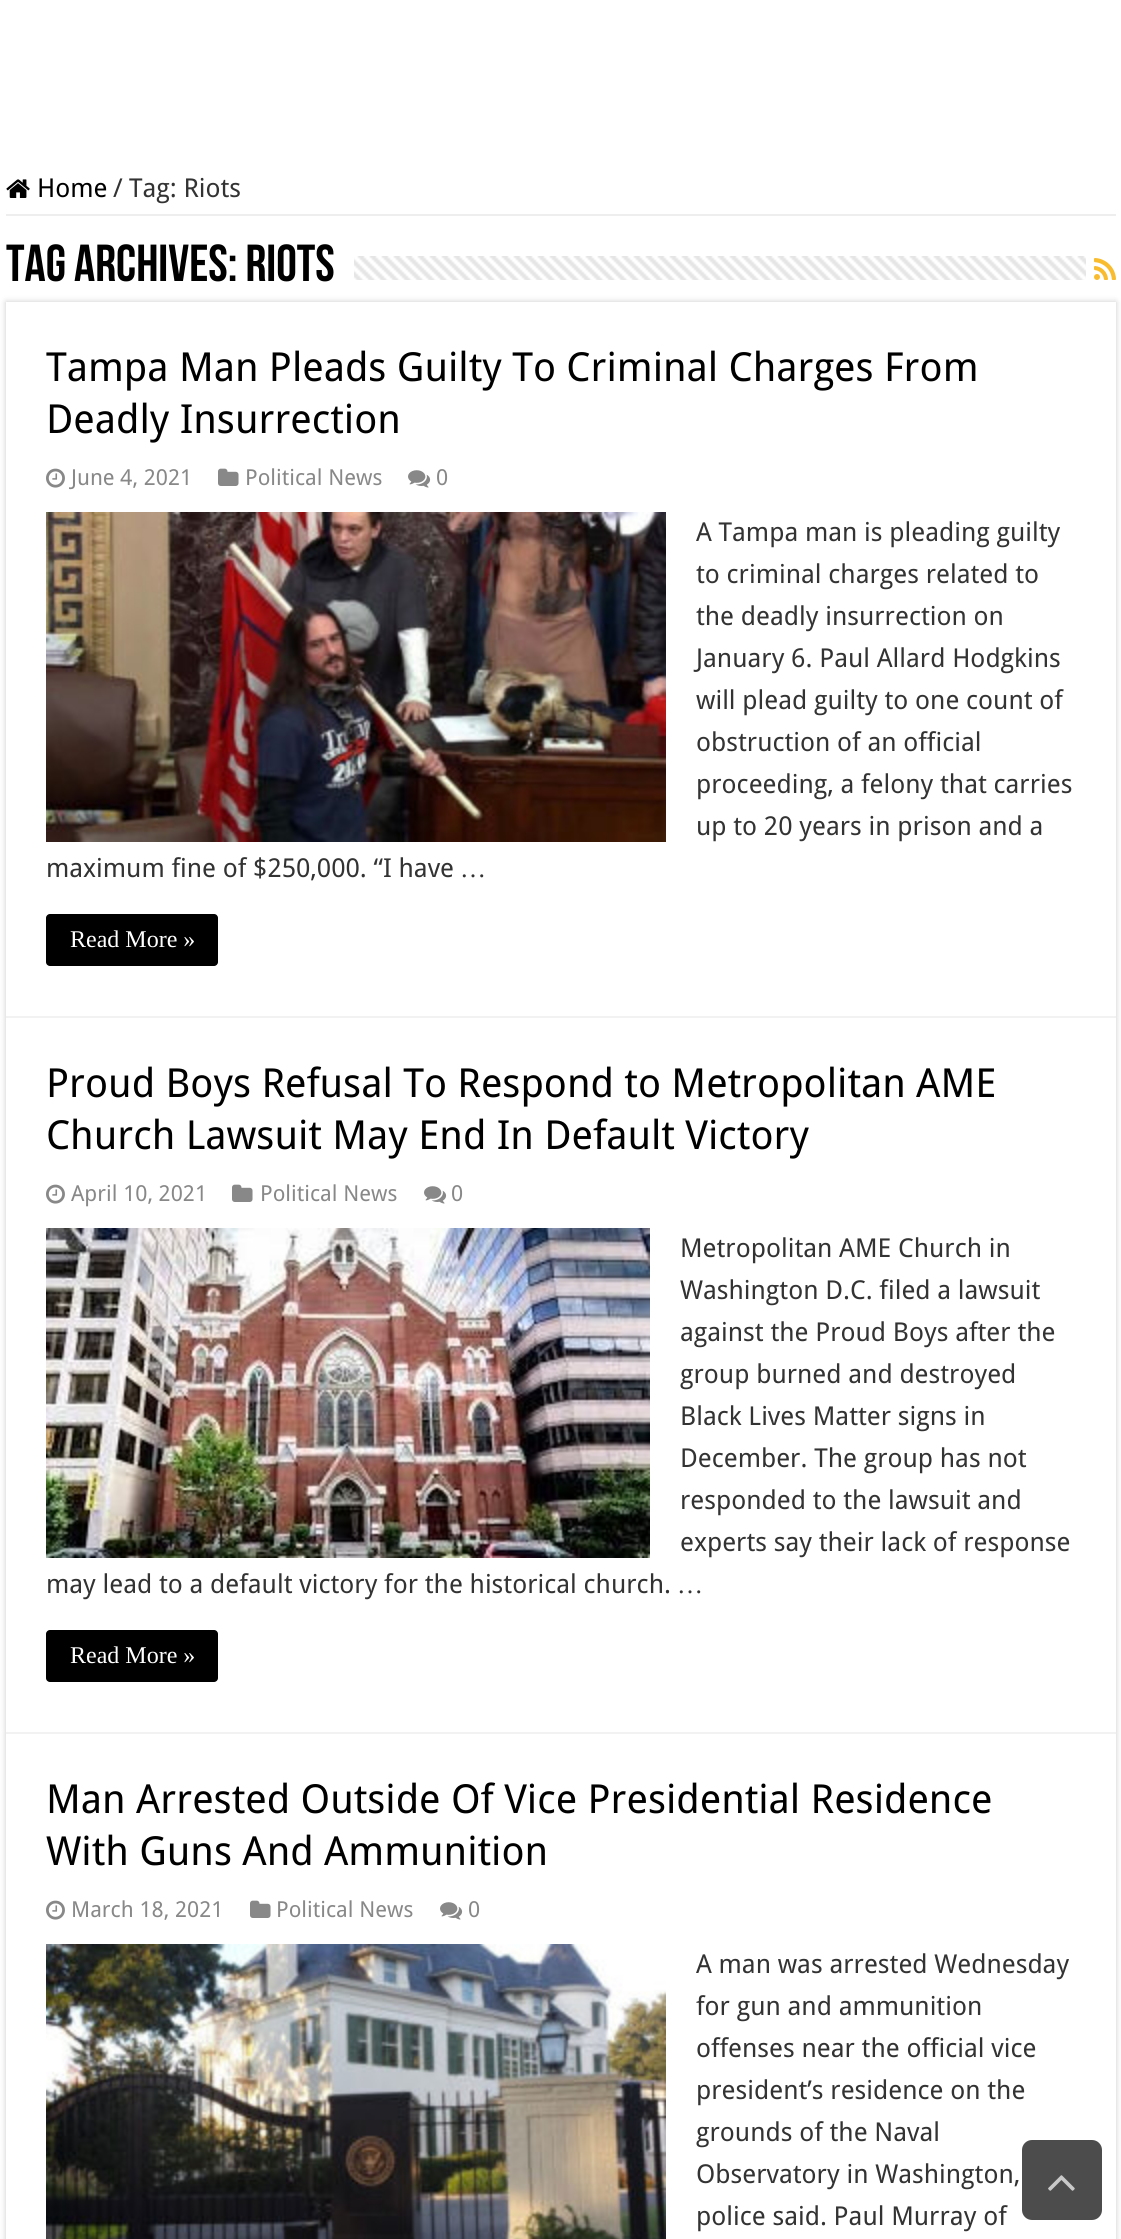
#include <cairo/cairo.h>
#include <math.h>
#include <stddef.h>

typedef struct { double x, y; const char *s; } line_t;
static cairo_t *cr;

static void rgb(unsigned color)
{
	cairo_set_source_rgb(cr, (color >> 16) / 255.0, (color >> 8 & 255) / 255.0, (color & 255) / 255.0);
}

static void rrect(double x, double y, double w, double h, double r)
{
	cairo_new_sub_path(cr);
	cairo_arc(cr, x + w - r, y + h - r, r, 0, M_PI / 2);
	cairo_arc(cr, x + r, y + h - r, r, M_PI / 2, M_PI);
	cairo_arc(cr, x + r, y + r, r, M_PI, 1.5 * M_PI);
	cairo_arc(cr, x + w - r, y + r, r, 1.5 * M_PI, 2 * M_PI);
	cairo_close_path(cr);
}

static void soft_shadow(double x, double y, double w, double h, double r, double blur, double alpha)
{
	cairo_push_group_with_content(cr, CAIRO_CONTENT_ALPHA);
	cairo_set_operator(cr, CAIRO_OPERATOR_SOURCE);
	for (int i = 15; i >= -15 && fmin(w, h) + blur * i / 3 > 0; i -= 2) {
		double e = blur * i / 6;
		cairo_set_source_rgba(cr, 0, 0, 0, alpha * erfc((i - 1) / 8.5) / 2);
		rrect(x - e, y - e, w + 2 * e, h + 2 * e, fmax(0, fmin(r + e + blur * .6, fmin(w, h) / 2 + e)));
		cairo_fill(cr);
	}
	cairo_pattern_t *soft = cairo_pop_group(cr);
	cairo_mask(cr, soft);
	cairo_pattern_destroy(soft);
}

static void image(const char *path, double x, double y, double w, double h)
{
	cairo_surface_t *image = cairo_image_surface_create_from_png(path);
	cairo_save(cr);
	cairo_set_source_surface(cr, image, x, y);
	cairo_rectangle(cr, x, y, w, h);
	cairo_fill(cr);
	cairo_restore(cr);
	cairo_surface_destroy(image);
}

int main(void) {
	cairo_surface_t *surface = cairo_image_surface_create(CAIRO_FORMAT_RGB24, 1121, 2239);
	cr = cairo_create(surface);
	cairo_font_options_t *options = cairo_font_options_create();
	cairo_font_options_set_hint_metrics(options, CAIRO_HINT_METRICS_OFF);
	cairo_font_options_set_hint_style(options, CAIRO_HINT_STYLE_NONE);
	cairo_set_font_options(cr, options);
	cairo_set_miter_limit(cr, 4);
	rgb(0xffffff);
	cairo_paint(cr);
	rgb(0xeeeeee);
	cairo_rectangle(cr, 6, 214, 1110, 2);
	cairo_fill(cr);
	image("img/1.png", 6, 179, 24, 19);
	image("img/2.png", 354, 256, 732, 24);
	image("img/3.png", 1094, 258, 22, 22);
	cairo_save(cr);
	cairo_set_fill_rule(cr, CAIRO_FILL_RULE_EVEN_ODD);
	cairo_new_path(cr);
	cairo_move_to(cr, 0, 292);
	cairo_line_to(cr, 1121, 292);
	cairo_line_to(cr, 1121, 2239);
	cairo_line_to(cr, 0, 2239);
	cairo_close_path(cr);
	cairo_move_to(cr, 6, 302);
	cairo_line_to(cr, 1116, 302);
	cairo_line_to(cr, 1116, 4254);
	cairo_line_to(cr, 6, 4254);
	cairo_close_path(cr);
	cairo_clip(cr);
	rgb(0xcacaca);
	soft_shadow(6, 302, 1110, 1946, 0, 3, 1);
	cairo_restore(cr);
	rgb(0xf2f2f2);
	cairo_rectangle(cr, 6, 1016, 1110, 2);
	cairo_fill(cr);
	image("img/4.png", 46, 468, 19, 20);
	image("img/5.png", 218, 468, 21, 18);
	image("img/6.png", 408, 470, 23, 18);
	image("img/7.png", 46, 512, 620, 330);
	rgb(0x000000);
	rrect(46, 914, 172, 52, 4);
	cairo_fill(cr);
	rgb(0xf2f2f2);
	cairo_rectangle(cr, 6, 1732, 1110, 2);
	cairo_fill(cr);
	image("img/4.png", 46, 1184, 19, 20);
	image("img/5.png", 232, 1184, 21, 18);
	image("img/6.png", 424, 1186, 23, 18);
	image("img/8.png", 46, 1228, 604, 330);
	rgb(0x000000);
	rrect(46, 1630, 172, 52, 4);
	cairo_fill(cr);
	image("img/4.png", 46, 1900, 19, 20);
	image("img/5.png", 250, 1900, 21, 18);
	image("img/6.png", 440, 1902, 23, 18);
	image("img/9.png", 46, 1944, 620, 295);
	cairo_set_source_rgba(cr, 0, 0, 0, 0.7);
	rrect(1022, 2140, 80, 80, 10);
	cairo_fill(cr);
	image("img/10.png", 1048, 2175, 27, 16);
	cairo_select_font_face(cr, "Droid Sans", CAIRO_FONT_SLANT_NORMAL, CAIRO_FONT_WEIGHT_NORMAL);
	cairo_set_font_size(cr, 26);
	rgb(0x000000);
	cairo_move_to(cr, 37, 197);
	cairo_show_text(cr, "Home");
	rgb(0x333333);
	cairo_move_to(cr, 113, 197);
	cairo_show_text(cr, "/");
	cairo_move_to(cr, 129, 197);
	cairo_show_text(cr, "Tag: Riots");
	cairo_select_font_face(cr, "Bebas Neue", CAIRO_FONT_SLANT_NORMAL, CAIRO_FONT_WEIGHT_BOLD);
	cairo_set_font_size(cr, 52);
	rgb(0x000000);
	cairo_move_to(cr, 6, 281);
	cairo_show_text(cr, "Tag Archives: Riots");
	cairo_select_font_face(cr, "Droid Sans", CAIRO_FONT_SLANT_NORMAL, CAIRO_FONT_WEIGHT_NORMAL);
	cairo_set_font_size(cr, 40);
	cairo_move_to(cr, 46, 381);
	cairo_show_text(cr, "Tampa Man Pleads Guilty To Criminal Charges From");
	cairo_move_to(cr, 46, 433);
	cairo_show_text(cr, "Deadly Insurrection");
	cairo_set_font_size(cr, 22);
	rgb(0x888888);
	{
		static const line_t items[] = {
			{71, 485, "June 4, 2021"},
			{245, 485, "Political News"},
			{436, 485, "0"},
		};
		for (size_t i = 0; i < sizeof items / sizeof *items; i++) {
			cairo_move_to(cr, items[i].x, items[i].y);
			cairo_show_text(cr, items[i].s);
		}
	}
	cairo_set_font_size(cr, 26);
	rgb(0x333333);
	{
		static const line_t items[] = {
			{696, 541, "A Tampa man is pleading guilty"},
			{696, 583, "to criminal charges related to"},
			{696, 625, "the deadly insurrection on"},
			{696, 667, "January 6. Paul Allard Hodgkins"},
			{696, 709, "will plead guilty to one count of"},
			{696, 751, "obstruction of an official"},
			{696, 793, "proceeding, a felony that carries"},
			{696, 835, "up to 20 years in prison and a"},
			{46, 877, "maximum fine of $250,000. “I have"},
		};
		for (size_t i = 0; i < sizeof items / sizeof *items; i++) {
			cairo_move_to(cr, items[i].x, items[i].y);
			cairo_show_text(cr, items[i].s);
		}
	}
	cairo_select_font_face(cr, "Liberation Serif", CAIRO_FONT_SLANT_NORMAL, CAIRO_FONT_WEIGHT_NORMAL);
	cairo_move_to(cr, 460, 877);
	cairo_show_text(cr, "…");
	cairo_set_font_size(cr, 24);
	rgb(0xffffff);
	cairo_move_to(cr, 70, 947);
	cairo_show_text(cr, "Read More »");
	cairo_select_font_face(cr, "Droid Sans", CAIRO_FONT_SLANT_NORMAL, CAIRO_FONT_WEIGHT_NORMAL);
	cairo_set_font_size(cr, 40);
	rgb(0x000000);
	cairo_move_to(cr, 46, 1097);
	cairo_show_text(cr, "Proud Boys Refusal To Respond to Metropolitan AME");
	cairo_move_to(cr, 46, 1149);
	cairo_show_text(cr, "Church Lawsuit May End In Default Victory");
	cairo_set_font_size(cr, 22);
	rgb(0x888888);
	{
		static const line_t items[] = {
			{71, 1201, "April 10, 2021"},
			{260, 1201, "Political News"},
			{451, 1201, "0"},
		};
		for (size_t i = 0; i < sizeof items / sizeof *items; i++) {
			cairo_move_to(cr, items[i].x, items[i].y);
			cairo_show_text(cr, items[i].s);
		}
	}
	cairo_set_font_size(cr, 26);
	rgb(0x333333);
	{
		static const line_t items[] = {
			{680, 1257, "Metropolitan AME Church in"},
			{680, 1299, "Washington D.C. filed a lawsuit"},
			{680, 1341, "against the Proud Boys after the"},
			{680, 1383, "group burned and destroyed"},
			{680, 1425, "Black Lives Matter signs in"},
			{680, 1467, "December. The group has not"},
			{680, 1509, "responded to the lawsuit and"},
			{680, 1551, "experts say their lack of response"},
			{46, 1593, "may lead to a default victory for the historical church."},
		};
		for (size_t i = 0; i < sizeof items / sizeof *items; i++) {
			cairo_move_to(cr, items[i].x, items[i].y);
			cairo_show_text(cr, items[i].s);
		}
	}
	cairo_select_font_face(cr, "Liberation Serif", CAIRO_FONT_SLANT_NORMAL, CAIRO_FONT_WEIGHT_NORMAL);
	cairo_move_to(cr, 677, 1593);
	cairo_show_text(cr, "…");
	cairo_set_font_size(cr, 24);
	rgb(0xffffff);
	cairo_move_to(cr, 70, 1663);
	cairo_show_text(cr, "Read More »");
	cairo_select_font_face(cr, "Droid Sans", CAIRO_FONT_SLANT_NORMAL, CAIRO_FONT_WEIGHT_NORMAL);
	cairo_set_font_size(cr, 40);
	rgb(0x000000);
	cairo_move_to(cr, 46, 1813);
	cairo_show_text(cr, "Man Arrested Outside Of Vice Presidential Residence");
	cairo_move_to(cr, 46, 1865);
	cairo_show_text(cr, "With Guns And Ammunition");
	cairo_set_font_size(cr, 22);
	rgb(0x888888);
	{
		static const line_t items[] = {
			{71, 1917, "March 18, 2021"},
			{276, 1917, "Political News"},
			{468, 1917, "0"},
		};
		for (size_t i = 0; i < sizeof items / sizeof *items; i++) {
			cairo_move_to(cr, items[i].x, items[i].y);
			cairo_show_text(cr, items[i].s);
		}
	}
	cairo_set_font_size(cr, 26);
	rgb(0x333333);
	{
		static const line_t items[] = {
			{696, 1973, "A man was arrested Wednesday"},
			{696, 2015, "for gun and ammunition"},
			{696, 2057, "offenses near the official vice"},
			{696, 2099, "president’s residence on the"},
			{696, 2141, "grounds of the Naval"},
			{696, 2183, "Observatory in Washington,"},
			{696, 2225, "police said. Paul Murray of"},
		};
		for (size_t i = 0; i < sizeof items / sizeof *items; i++) {
			cairo_move_to(cr, items[i].x, items[i].y);
			cairo_show_text(cr, items[i].s);
		}
	}
	cairo_surface_write_to_png(surface, "page.png");
	cairo_font_options_destroy(options);
	cairo_destroy(cr);
	cairo_surface_destroy(surface);
	return 0;
}
